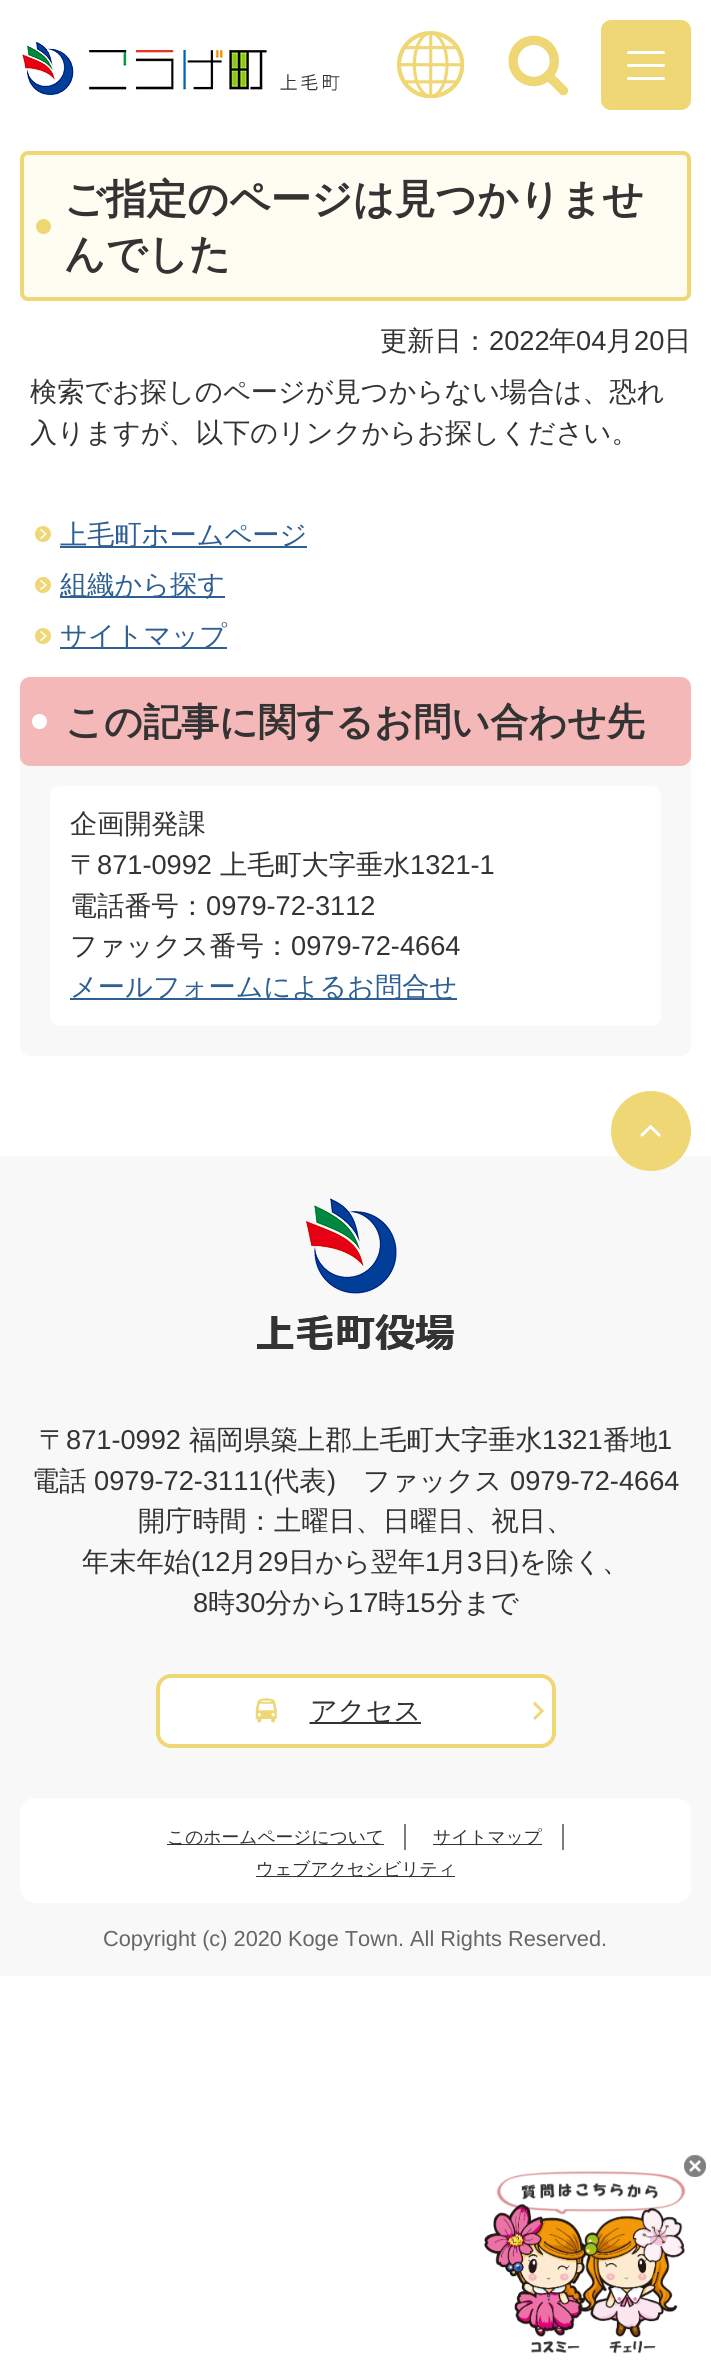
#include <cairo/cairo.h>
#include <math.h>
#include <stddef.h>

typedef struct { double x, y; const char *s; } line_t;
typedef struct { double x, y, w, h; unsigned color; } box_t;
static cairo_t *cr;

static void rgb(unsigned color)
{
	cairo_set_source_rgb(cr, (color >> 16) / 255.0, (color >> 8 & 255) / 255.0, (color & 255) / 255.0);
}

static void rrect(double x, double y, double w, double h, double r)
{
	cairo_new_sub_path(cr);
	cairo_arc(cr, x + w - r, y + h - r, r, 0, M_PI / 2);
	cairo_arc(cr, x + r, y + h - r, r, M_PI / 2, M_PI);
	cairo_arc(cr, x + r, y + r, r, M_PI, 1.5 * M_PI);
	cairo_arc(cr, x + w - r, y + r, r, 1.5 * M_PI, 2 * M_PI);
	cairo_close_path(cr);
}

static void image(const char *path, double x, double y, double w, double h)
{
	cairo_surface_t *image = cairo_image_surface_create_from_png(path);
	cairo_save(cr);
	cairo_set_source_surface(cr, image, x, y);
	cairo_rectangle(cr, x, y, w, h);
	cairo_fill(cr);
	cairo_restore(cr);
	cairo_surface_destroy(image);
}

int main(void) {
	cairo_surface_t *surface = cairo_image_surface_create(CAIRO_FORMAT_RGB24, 711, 2378);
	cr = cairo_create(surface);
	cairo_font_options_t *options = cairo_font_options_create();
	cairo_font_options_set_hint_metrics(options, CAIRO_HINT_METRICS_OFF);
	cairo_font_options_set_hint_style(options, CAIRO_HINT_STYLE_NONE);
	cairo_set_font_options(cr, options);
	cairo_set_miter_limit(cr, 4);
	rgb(0xffffff);
	cairo_paint(cr);
	image("img/1.png", 22, 41, 318, 55);
	image("img/2.png", 397, 31, 67, 67);
	image("img/3.png", 508, 35, 60, 61);
	image("img/4.png", 601, 20, 90, 90);
	rgb(0xfffcf1);
	rrect(22, 153, 667, 146, 6);
	cairo_fill_preserve(cr);
	rgb(0xefd776);
	cairo_set_line_width(cr, 4);
	cairo_stroke(cr);
	cairo_arc(cr, 43.5, 226.5, 7.5, 0, 2 * M_PI);
	cairo_fill(cr);
	image("img/5.png", 35, 526, 16, 16);
	rgb(0x2d5f92);
	cairo_rectangle(cr, 60, 546, 247, 2);
	cairo_fill(cr);
	image("img/5.png", 35, 577, 16, 16);
	cairo_rectangle(cr, 60, 596, 165, 2);
	cairo_fill(cr);
	image("img/5.png", 35, 628, 16, 16);
	cairo_rectangle(cr, 60, 647, 167, 2);
	cairo_fill(cr);
	rgb(0xf8f8f8);
	rrect(20, 677, 671, 379, 10);
	cairo_fill(cr);
	rgb(0xf5b8b8);
	rrect(20, 677, 671, 89, 10);
	cairo_fill(cr);
	rgb(0xffffff);
	cairo_arc(cr, 39.5, 721.5, 7.5, 0, 2 * M_PI);
	cairo_fill(cr);
	rrect(50, 786, 611, 240, 10);
	cairo_fill(cr);
	rgb(0x2d5f92);
	cairo_rectangle(cr, 70, 998, 387, 2);
	cairo_fill(cr);
	rgb(0xf8f8f8);
	cairo_rectangle(cr, 0, 1156, 711, 820);
	cairo_fill(cr);
	image("img/6.png", 611, 1091, 80, 80);
	image("img/7.png", 257, 1198, 197, 152);
	rgb(0xffffff);
	rrect(156, 1674, 400, 74, 15);
	cairo_fill(cr);
	image("img/8.png", 255, 1698, 55, 26);
	rrect(158, 1676, 396, 70, 13);
	rgb(0xefd776);
	cairo_stroke(cr);
	rgb(0x333333);
	cairo_rectangle(cr, 310, 1722, 111, 2);
	cairo_fill(cr);
	rgb(0xefd776);
	cairo_new_path(cr);
	cairo_move_to(cr, 535, 1701.5);
	cairo_line_to(cr, 544, 1711);
	cairo_line_to(cr, 542, 1713);
	cairo_line_to(cr, 533, 1704);
	cairo_close_path(cr);
	cairo_fill(cr);
	cairo_new_path(cr);
	cairo_move_to(cr, 542, 1709);
	cairo_line_to(cr, 544, 1711);
	cairo_line_to(cr, 535, 1720);
	cairo_line_to(cr, 533, 1718);
	cairo_close_path(cr);
	cairo_fill(cr);
	rgb(0xffffff);
	rrect(20, 1798, 671, 105, 15);
	cairo_fill(cr);
	{
		static const box_t items[] = {
			{404, 1824, 2, 26, 0x7d7d7d},
			{167, 1844, 217, 1, 0x333333},
			{562, 1824, 2, 26, 0x7d7d7d},
			{433, 1844, 109, 1, 0x333333},
			{256, 1876, 199, 1, 0x333333},
		};
		for (size_t i = 0; i < sizeof items / sizeof *items; i++) {
			rgb(items[i].color);
			cairo_rectangle(cr, items[i].x, items[i].y, items[i].w, items[i].h);
			cairo_fill(cr);
		}
	}
	image("img/10.png", 484, 2171, 202, 183);
	image("img/9.png", 684, 2154, 22, 23);
	cairo_select_font_face(cr, "WenQuanYi Zen Hei", CAIRO_FONT_SLANT_NORMAL, CAIRO_FONT_WEIGHT_BOLD);
	cairo_set_font_size(cr, 40.75);
	cairo_move_to(cr, 64, 213);
	cairo_show_text(cr, "ご指定のページは見つかりませ");
	cairo_move_to(cr, 64, 268);
	cairo_show_text(cr, "んでした");
	cairo_select_font_face(cr, "WenQuanYi Zen Hei Medium", CAIRO_FONT_SLANT_NORMAL, CAIRO_FONT_WEIGHT_NORMAL);
	cairo_set_font_size(cr, 27.2);
	cairo_move_to(cr, 380, 350);
	cairo_show_text(cr, "更新日：");
	cairo_select_font_face(cr, "Liberation Sans", CAIRO_FONT_SLANT_NORMAL, CAIRO_FONT_WEIGHT_NORMAL);
	cairo_move_to(cr, 489, 350);
	cairo_show_text(cr, "2022");
	cairo_select_font_face(cr, "WenQuanYi Zen Hei Medium", CAIRO_FONT_SLANT_NORMAL, CAIRO_FONT_WEIGHT_NORMAL);
	cairo_move_to(cr, 549, 350);
	cairo_show_text(cr, "年");
	cairo_select_font_face(cr, "Liberation Sans", CAIRO_FONT_SLANT_NORMAL, CAIRO_FONT_WEIGHT_NORMAL);
	cairo_move_to(cr, 576, 350);
	cairo_show_text(cr, "04");
	cairo_select_font_face(cr, "WenQuanYi Zen Hei Medium", CAIRO_FONT_SLANT_NORMAL, CAIRO_FONT_WEIGHT_NORMAL);
	cairo_move_to(cr, 606, 350);
	cairo_show_text(cr, "月");
	cairo_select_font_face(cr, "Liberation Sans", CAIRO_FONT_SLANT_NORMAL, CAIRO_FONT_WEIGHT_NORMAL);
	cairo_move_to(cr, 634, 350);
	cairo_show_text(cr, "20");
	cairo_select_font_face(cr, "WenQuanYi Zen Hei Medium", CAIRO_FONT_SLANT_NORMAL, CAIRO_FONT_WEIGHT_NORMAL);
	{
		static const line_t items[] = {
			{664, 350, "日"},
			{30, 401, "検索でお探しのページが見つからない場合は、恐れ"},
			{30, 442, "入りますが、以下のリンクからお探しください。"},
		};
		for (size_t i = 0; i < sizeof items / sizeof *items; i++) {
			cairo_move_to(cr, items[i].x, items[i].y);
			cairo_show_text(cr, items[i].s);
		}
	}
	rgb(0x2d5f92);
	{
		static const line_t items[] = {
			{60, 544, "上毛町ホームページ"},
			{60, 594, "組織から探す"},
			{60, 645, "サイトマップ"},
		};
		for (size_t i = 0; i < sizeof items / sizeof *items; i++) {
			cairo_move_to(cr, items[i].x, items[i].y);
			cairo_show_text(cr, items[i].s);
		}
	}
	cairo_select_font_face(cr, "WenQuanYi Zen Hei", CAIRO_FONT_SLANT_NORMAL, CAIRO_FONT_WEIGHT_BOLD);
	cairo_set_font_size(cr, 38.1);
	rgb(0x333333);
	cairo_move_to(cr, 65, 735);
	cairo_show_text(cr, "この記事に関するお問い合わせ先");
	cairo_select_font_face(cr, "WenQuanYi Zen Hei Medium", CAIRO_FONT_SLANT_NORMAL, CAIRO_FONT_WEIGHT_NORMAL);
	cairo_set_font_size(cr, 27.2);
	cairo_move_to(cr, 70, 833);
	cairo_show_text(cr, "企画開発課");
	cairo_move_to(cr, 70, 874);
	cairo_show_text(cr, "〒");
	cairo_select_font_face(cr, "Liberation Sans", CAIRO_FONT_SLANT_NORMAL, CAIRO_FONT_WEIGHT_NORMAL);
	cairo_move_to(cr, 97, 874);
	cairo_show_text(cr, "871-0992");
	cairo_select_font_face(cr, "WenQuanYi Zen Hei Medium", CAIRO_FONT_SLANT_NORMAL, CAIRO_FONT_WEIGHT_NORMAL);
	cairo_move_to(cr, 220, 874);
	cairo_show_text(cr, "上毛町大字垂水");
	cairo_select_font_face(cr, "Liberation Sans", CAIRO_FONT_SLANT_NORMAL, CAIRO_FONT_WEIGHT_NORMAL);
	cairo_move_to(cr, 410, 874);
	cairo_show_text(cr, "1321-1");
	cairo_select_font_face(cr, "WenQuanYi Zen Hei Medium", CAIRO_FONT_SLANT_NORMAL, CAIRO_FONT_WEIGHT_NORMAL);
	cairo_move_to(cr, 70, 915);
	cairo_show_text(cr, "電話番号：");
	cairo_select_font_face(cr, "Liberation Sans", CAIRO_FONT_SLANT_NORMAL, CAIRO_FONT_WEIGHT_NORMAL);
	cairo_move_to(cr, 206, 915);
	cairo_show_text(cr, "0979-72-3112");
	cairo_select_font_face(cr, "WenQuanYi Zen Hei Medium", CAIRO_FONT_SLANT_NORMAL, CAIRO_FONT_WEIGHT_NORMAL);
	cairo_move_to(cr, 70, 955);
	cairo_show_text(cr, "ファックス番号：");
	cairo_select_font_face(cr, "Liberation Sans", CAIRO_FONT_SLANT_NORMAL, CAIRO_FONT_WEIGHT_NORMAL);
	cairo_move_to(cr, 291, 955);
	cairo_show_text(cr, "0979-72-4664");
	cairo_select_font_face(cr, "WenQuanYi Zen Hei Medium", CAIRO_FONT_SLANT_NORMAL, CAIRO_FONT_WEIGHT_NORMAL);
	rgb(0x2d5f92);
	cairo_move_to(cr, 70, 996);
	cairo_show_text(cr, "メールフォームによるお問合せ");
	rgb(0x333333);
	cairo_move_to(cr, 39, 1449);
	cairo_show_text(cr, "〒");
	cairo_select_font_face(cr, "Liberation Sans", CAIRO_FONT_SLANT_NORMAL, CAIRO_FONT_WEIGHT_NORMAL);
	cairo_move_to(cr, 66, 1449);
	cairo_show_text(cr, "871-0992");
	cairo_select_font_face(cr, "WenQuanYi Zen Hei Medium", CAIRO_FONT_SLANT_NORMAL, CAIRO_FONT_WEIGHT_NORMAL);
	cairo_move_to(cr, 189, 1449);
	cairo_show_text(cr, "福岡県築上郡上毛町大字垂水");
	cairo_select_font_face(cr, "Liberation Sans", CAIRO_FONT_SLANT_NORMAL, CAIRO_FONT_WEIGHT_NORMAL);
	cairo_move_to(cr, 542, 1449);
	cairo_show_text(cr, "1321");
	cairo_select_font_face(cr, "WenQuanYi Zen Hei Medium", CAIRO_FONT_SLANT_NORMAL, CAIRO_FONT_WEIGHT_NORMAL);
	cairo_move_to(cr, 603, 1449);
	cairo_show_text(cr, "番地");
	cairo_select_font_face(cr, "Liberation Sans", CAIRO_FONT_SLANT_NORMAL, CAIRO_FONT_WEIGHT_NORMAL);
	cairo_move_to(cr, 657, 1449);
	cairo_show_text(cr, "1");
	cairo_select_font_face(cr, "WenQuanYi Zen Hei Medium", CAIRO_FONT_SLANT_NORMAL, CAIRO_FONT_WEIGHT_NORMAL);
	cairo_move_to(cr, 32, 1490);
	cairo_show_text(cr, "電話");
	cairo_select_font_face(cr, "Liberation Sans", CAIRO_FONT_SLANT_NORMAL, CAIRO_FONT_WEIGHT_NORMAL);
	cairo_move_to(cr, 94, 1490);
	cairo_show_text(cr, "0979-72-3111(");
	cairo_select_font_face(cr, "WenQuanYi Zen Hei Medium", CAIRO_FONT_SLANT_NORMAL, CAIRO_FONT_WEIGHT_NORMAL);
	cairo_move_to(cr, 272, 1490);
	cairo_show_text(cr, "代表");
	cairo_select_font_face(cr, "Liberation Sans", CAIRO_FONT_SLANT_NORMAL, CAIRO_FONT_WEIGHT_NORMAL);
	cairo_move_to(cr, 327, 1490);
	cairo_show_text(cr, ")");
	cairo_select_font_face(cr, "WenQuanYi Zen Hei Medium", CAIRO_FONT_SLANT_NORMAL, CAIRO_FONT_WEIGHT_NORMAL);
	cairo_move_to(cr, 363, 1490);
	cairo_show_text(cr, "ファックス");
	cairo_select_font_face(cr, "Liberation Sans", CAIRO_FONT_SLANT_NORMAL, CAIRO_FONT_WEIGHT_NORMAL);
	cairo_move_to(cr, 510, 1490);
	cairo_show_text(cr, "0979-72-4664");
	cairo_select_font_face(cr, "WenQuanYi Zen Hei Medium", CAIRO_FONT_SLANT_NORMAL, CAIRO_FONT_WEIGHT_NORMAL);
	cairo_move_to(cr, 138, 1530);
	cairo_show_text(cr, "開庁時間：土曜日、日曜日、祝日、");
	cairo_move_to(cr, 82, 1571);
	cairo_show_text(cr, "年末年始");
	cairo_select_font_face(cr, "Liberation Sans", CAIRO_FONT_SLANT_NORMAL, CAIRO_FONT_WEIGHT_NORMAL);
	cairo_move_to(cr, 191, 1571);
	cairo_show_text(cr, "(12");
	cairo_select_font_face(cr, "WenQuanYi Zen Hei Medium", CAIRO_FONT_SLANT_NORMAL, CAIRO_FONT_WEIGHT_NORMAL);
	cairo_move_to(cr, 230, 1571);
	cairo_show_text(cr, "月");
	cairo_select_font_face(cr, "Liberation Sans", CAIRO_FONT_SLANT_NORMAL, CAIRO_FONT_WEIGHT_NORMAL);
	cairo_move_to(cr, 258, 1571);
	cairo_show_text(cr, "29");
	cairo_select_font_face(cr, "WenQuanYi Zen Hei Medium", CAIRO_FONT_SLANT_NORMAL, CAIRO_FONT_WEIGHT_NORMAL);
	cairo_move_to(cr, 288, 1571);
	cairo_show_text(cr, "日から翌年");
	cairo_select_font_face(cr, "Liberation Sans", CAIRO_FONT_SLANT_NORMAL, CAIRO_FONT_WEIGHT_NORMAL);
	cairo_move_to(cr, 425, 1571);
	cairo_show_text(cr, "1");
	cairo_select_font_face(cr, "WenQuanYi Zen Hei Medium", CAIRO_FONT_SLANT_NORMAL, CAIRO_FONT_WEIGHT_NORMAL);
	cairo_move_to(cr, 440, 1571);
	cairo_show_text(cr, "月");
	cairo_select_font_face(cr, "Liberation Sans", CAIRO_FONT_SLANT_NORMAL, CAIRO_FONT_WEIGHT_NORMAL);
	cairo_move_to(cr, 467, 1571);
	cairo_show_text(cr, "3");
	cairo_select_font_face(cr, "WenQuanYi Zen Hei Medium", CAIRO_FONT_SLANT_NORMAL, CAIRO_FONT_WEIGHT_NORMAL);
	cairo_move_to(cr, 483, 1571);
	cairo_show_text(cr, "日");
	cairo_select_font_face(cr, "Liberation Sans", CAIRO_FONT_SLANT_NORMAL, CAIRO_FONT_WEIGHT_NORMAL);
	cairo_move_to(cr, 510, 1571);
	cairo_show_text(cr, ")");
	cairo_select_font_face(cr, "WenQuanYi Zen Hei Medium", CAIRO_FONT_SLANT_NORMAL, CAIRO_FONT_WEIGHT_NORMAL);
	cairo_move_to(cr, 519, 1571);
	cairo_show_text(cr, "を除く、");
	cairo_select_font_face(cr, "Liberation Sans", CAIRO_FONT_SLANT_NORMAL, CAIRO_FONT_WEIGHT_NORMAL);
	cairo_move_to(cr, 193, 1612);
	cairo_show_text(cr, "8");
	cairo_select_font_face(cr, "WenQuanYi Zen Hei Medium", CAIRO_FONT_SLANT_NORMAL, CAIRO_FONT_WEIGHT_NORMAL);
	cairo_move_to(cr, 208, 1612);
	cairo_show_text(cr, "時");
	cairo_select_font_face(cr, "Liberation Sans", CAIRO_FONT_SLANT_NORMAL, CAIRO_FONT_WEIGHT_NORMAL);
	cairo_move_to(cr, 235, 1612);
	cairo_show_text(cr, "30");
	cairo_select_font_face(cr, "WenQuanYi Zen Hei Medium", CAIRO_FONT_SLANT_NORMAL, CAIRO_FONT_WEIGHT_NORMAL);
	cairo_move_to(cr, 265, 1612);
	cairo_show_text(cr, "分から");
	cairo_select_font_face(cr, "Liberation Sans", CAIRO_FONT_SLANT_NORMAL, CAIRO_FONT_WEIGHT_NORMAL);
	cairo_move_to(cr, 348, 1612);
	cairo_show_text(cr, "17");
	cairo_select_font_face(cr, "WenQuanYi Zen Hei Medium", CAIRO_FONT_SLANT_NORMAL, CAIRO_FONT_WEIGHT_NORMAL);
	cairo_move_to(cr, 378, 1612);
	cairo_show_text(cr, "時");
	cairo_select_font_face(cr, "Liberation Sans", CAIRO_FONT_SLANT_NORMAL, CAIRO_FONT_WEIGHT_NORMAL);
	cairo_move_to(cr, 405, 1612);
	cairo_show_text(cr, "15");
	cairo_select_font_face(cr, "WenQuanYi Zen Hei Medium", CAIRO_FONT_SLANT_NORMAL, CAIRO_FONT_WEIGHT_NORMAL);
	cairo_move_to(cr, 436, 1612);
	cairo_show_text(cr, "分まで");
	cairo_move_to(cr, 310, 1720);
	cairo_show_text(cr, "アクセス");
	cairo_set_font_size(cr, 17.75);
	{
		static const line_t items[] = {
			{167, 1843, "このホームページについて"},
			{433, 1843, "サイトマップ"},
			{256, 1875, "ウェブアクセシビリティ"},
		};
		for (size_t i = 0; i < sizeof items / sizeof *items; i++) {
			cairo_move_to(cr, items[i].x, items[i].y);
			cairo_show_text(cr, items[i].s);
		}
	}
	cairo_select_font_face(cr, "Liberation Sans", CAIRO_FONT_SLANT_NORMAL, CAIRO_FONT_WEIGHT_NORMAL);
	cairo_set_font_size(cr, 21.75);
	rgb(0x666666);
	cairo_move_to(cr, 103, 1946);
	cairo_show_text(cr, "Copyright (c) 2020 Koge Town. All Rights Reserved.");
	cairo_surface_write_to_png(surface, "page.png");
	cairo_font_options_destroy(options);
	cairo_destroy(cr);
	cairo_surface_destroy(surface);
	return 0;
}
